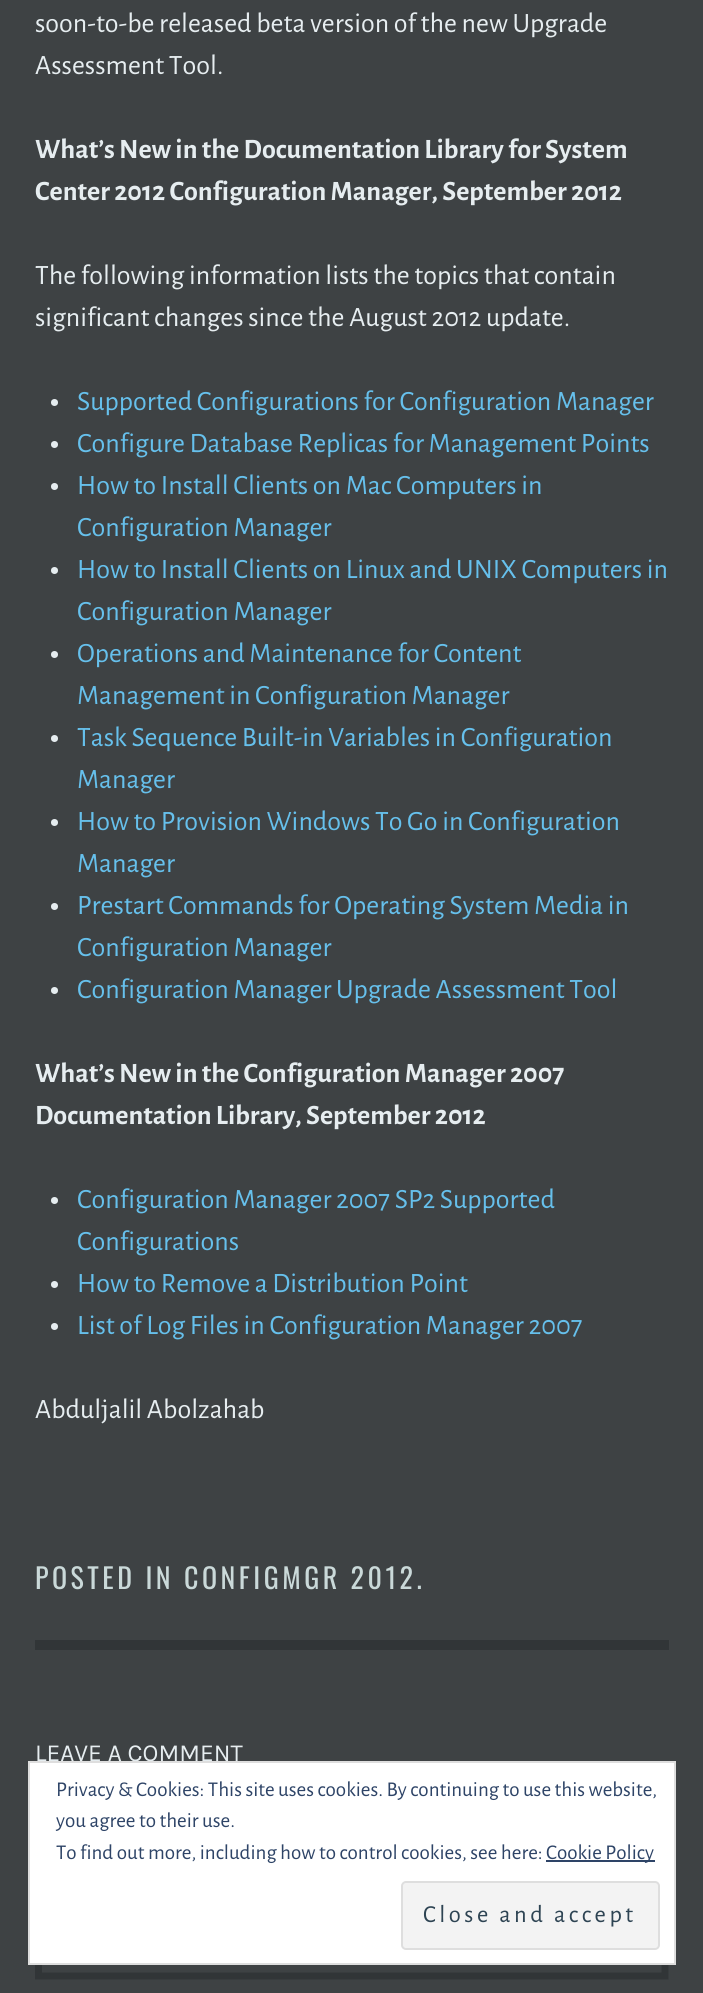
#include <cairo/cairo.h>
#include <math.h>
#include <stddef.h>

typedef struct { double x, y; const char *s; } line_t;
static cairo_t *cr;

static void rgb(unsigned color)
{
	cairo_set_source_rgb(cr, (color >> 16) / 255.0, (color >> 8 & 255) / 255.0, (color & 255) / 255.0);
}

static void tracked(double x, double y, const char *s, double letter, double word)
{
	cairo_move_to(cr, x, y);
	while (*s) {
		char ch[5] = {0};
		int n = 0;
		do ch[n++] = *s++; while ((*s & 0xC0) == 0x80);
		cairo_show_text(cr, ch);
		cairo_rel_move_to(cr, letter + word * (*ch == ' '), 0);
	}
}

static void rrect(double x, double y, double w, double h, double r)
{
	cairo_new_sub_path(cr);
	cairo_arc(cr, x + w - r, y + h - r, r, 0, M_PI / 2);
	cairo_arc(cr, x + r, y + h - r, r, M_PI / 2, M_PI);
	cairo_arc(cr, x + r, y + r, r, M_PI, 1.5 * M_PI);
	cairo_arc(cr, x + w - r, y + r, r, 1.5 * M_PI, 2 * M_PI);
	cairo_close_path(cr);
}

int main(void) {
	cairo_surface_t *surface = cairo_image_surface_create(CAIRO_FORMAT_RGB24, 703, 1993);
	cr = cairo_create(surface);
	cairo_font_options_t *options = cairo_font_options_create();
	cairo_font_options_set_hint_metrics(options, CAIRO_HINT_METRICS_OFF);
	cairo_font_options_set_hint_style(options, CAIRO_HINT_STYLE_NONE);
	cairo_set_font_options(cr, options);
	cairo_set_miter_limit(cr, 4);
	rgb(0x3e4244);
	cairo_paint(cr);
	rgb(0xe6edf0);
	cairo_arc(cr, 54.5, 402.5, 3.5, 0, 2 * M_PI);
	cairo_fill(cr);
	cairo_arc(cr, 54.5, 444.5, 3.5, 0, 2 * M_PI);
	cairo_fill(cr);
	cairo_arc(cr, 54.5, 486.5, 3.5, 0, 2 * M_PI);
	cairo_fill(cr);
	cairo_arc(cr, 54.5, 570.5, 3.5, 0, 2 * M_PI);
	cairo_fill(cr);
	cairo_arc(cr, 54.5, 654.5, 3.5, 0, 2 * M_PI);
	cairo_fill(cr);
	cairo_arc(cr, 54.5, 738.5, 3.5, 0, 2 * M_PI);
	cairo_fill(cr);
	cairo_arc(cr, 54.5, 822.5, 3.5, 0, 2 * M_PI);
	cairo_fill(cr);
	cairo_arc(cr, 54.5, 906.5, 3.5, 0, 2 * M_PI);
	cairo_fill(cr);
	cairo_arc(cr, 54.5, 990.5, 3.5, 0, 2 * M_PI);
	cairo_fill(cr);
	cairo_arc(cr, 54.5, 1200.5, 3.5, 0, 2 * M_PI);
	cairo_fill(cr);
	cairo_arc(cr, 54.5, 1284.5, 3.5, 0, 2 * M_PI);
	cairo_fill(cr);
	cairo_arc(cr, 54.5, 1326.5, 3.5, 0, 2 * M_PI);
	cairo_fill(cr);
	rgb(0x313537);
	cairo_rectangle(cr, 35, 1640, 634, 10);
	cairo_fill(cr);
	cairo_new_path(cr);
	cairo_move_to(cr, 38.5, 1899);
	cairo_line_to(cr, 665, 1899);
	cairo_line_to(cr, 665, 1976);
	cairo_line_to(cr, 38.5, 1976);
	cairo_close_path(cr);
	cairo_set_line_width(cr, 7);
	cairo_stroke(cr);
	cairo_select_font_face(cr, "Alegreya Sans", CAIRO_FONT_SLANT_NORMAL, CAIRO_FONT_WEIGHT_NORMAL);
	cairo_set_font_size(cr, 28);
	rgb(0xe6edf0);
	cairo_move_to(cr, 35, 32);
	cairo_show_text(cr, "soon-to-be released beta version of the new Upgrade");
	cairo_move_to(cr, 35, 74);
	cairo_show_text(cr, "Assessment Tool.");
	cairo_select_font_face(cr, "Alegreya Sans", CAIRO_FONT_SLANT_NORMAL, CAIRO_FONT_WEIGHT_BOLD);
	cairo_move_to(cr, 35, 158);
	cairo_show_text(cr, "What’s New in the Documentation Library for System");
	cairo_move_to(cr, 35, 200);
	cairo_show_text(cr, "Center 2012 Configuration Manager, September 2012");
	cairo_select_font_face(cr, "Alegreya Sans", CAIRO_FONT_SLANT_NORMAL, CAIRO_FONT_WEIGHT_NORMAL);
	cairo_move_to(cr, 35, 284);
	cairo_show_text(cr, "The following information lists the topics that contain");
	cairo_move_to(cr, 35, 326);
	cairo_show_text(cr, "significant changes since the August 2012 update.");
	rgb(0x66c0ec);
	{
		static const line_t items[] = {
			{77, 410, "Supported Configurations for Configuration Manager"},
			{77, 452, "Configure Database Replicas for Management Points"},
			{77, 494, "How to Install Clients on Mac Computers in"},
			{77, 536, "Configuration Manager"},
			{77, 578, "How to Install Clients on Linux and UNIX Computers in"},
			{77, 620, "Configuration Manager"},
			{77, 662, "Operations and Maintenance for Content"},
			{77, 704, "Management in Configuration Manager"},
			{77, 746, "Task Sequence Built-in Variables in Configuration"},
			{77, 788, "Manager"},
			{77, 830, "How to Provision Windows To Go in Configuration"},
			{77, 872, "Manager"},
			{77, 914, "Prestart Commands for Operating System Media in"},
			{77, 956, "Configuration Manager"},
			{77, 998, "Configuration Manager Upgrade Assessment Tool"},
		};
		for (size_t i = 0; i < sizeof items / sizeof *items; i++) {
			cairo_move_to(cr, items[i].x, items[i].y);
			cairo_show_text(cr, items[i].s);
		}
	}
	cairo_select_font_face(cr, "Alegreya Sans", CAIRO_FONT_SLANT_NORMAL, CAIRO_FONT_WEIGHT_BOLD);
	rgb(0xe6edf0);
	cairo_move_to(cr, 35, 1082);
	cairo_show_text(cr, "What’s New in the Configuration Manager 2007");
	cairo_move_to(cr, 35, 1124);
	cairo_show_text(cr, "Documentation Library, September 2012");
	cairo_select_font_face(cr, "Alegreya Sans", CAIRO_FONT_SLANT_NORMAL, CAIRO_FONT_WEIGHT_NORMAL);
	rgb(0x66c0ec);
	{
		static const line_t items[] = {
			{77, 1208, "Configuration Manager 2007 SP2 Supported"},
			{77, 1250, "Configurations"},
			{77, 1292, "How to Remove a Distribution Point"},
			{77, 1334, "List of Log Files in Configuration Manager 2007"},
		};
		for (size_t i = 0; i < sizeof items / sizeof *items; i++) {
			cairo_move_to(cr, items[i].x, items[i].y);
			cairo_show_text(cr, items[i].s);
		}
	}
	rgb(0xe6edf0);
	cairo_move_to(cr, 35, 1418);
	cairo_show_text(cr, "Abduljalil Abolzahab");
	cairo_select_font_face(cr, "Oswald", CAIRO_FONT_SLANT_NORMAL, CAIRO_FONT_WEIGHT_NORMAL);
	rgb(0xcad9d9);
	tracked(35, 1589, "POSTED IN CONFIGMGR 2012.", 3.5, 0);
	cairo_select_font_face(cr, "Karla", CAIRO_FONT_SLANT_NORMAL, CAIRO_FONT_WEIGHT_NORMAL);
	cairo_set_font_size(cr, 24.5);
	rgb(0xe6edf0);
	cairo_move_to(cr, 35, 1761);
	cairo_show_text(cr, "LEAVE A COMMENT");
	rgb(0xffffff);
	cairo_rectangle(cr, 29, 1762, 646, 202);
	cairo_fill_preserve(cr);
	rgb(0xdedede);
	cairo_set_line_width(cr, 2);
	cairo_stroke(cr);
	cairo_select_font_face(cr, "Alegreya Sans", CAIRO_FONT_SLANT_NORMAL, CAIRO_FONT_WEIGHT_NORMAL);
	cairo_set_font_size(cr, 21);
	rgb(0x2e4467);
	{
		static const line_t items[] = {
			{56, 1796, "Privacy & Cookies: This site uses cookies. By continuing to use this website,"},
			{56, 1827, "you agree to their use."},
			{56, 1859, "To find out more, including how to control cookies, see here:"},
		};
		for (size_t i = 0; i < sizeof items / sizeof *items; i++) {
			cairo_move_to(cr, items[i].x, items[i].y);
			cairo_show_text(cr, items[i].s);
		}
	}
	cairo_rectangle(cr, 546, 1860, 109, 2);
	cairo_fill(cr);
	cairo_move_to(cr, 546, 1859);
	cairo_show_text(cr, "Cookie Policy");
	rgb(0xf3f3f3);
	rrect(402, 1882, 257, 67, 4);
	cairo_fill_preserve(cr);
	rgb(0xdedede);
	cairo_stroke(cr);
	cairo_set_font_size(cr, 24.5);
	rgb(0x2e4453);
	tracked(423, 1922, "Close and accept", 3.5, 0);
	cairo_surface_write_to_png(surface, "page.png");
	cairo_font_options_destroy(options);
	cairo_destroy(cr);
	cairo_surface_destroy(surface);
	return 0;
}
